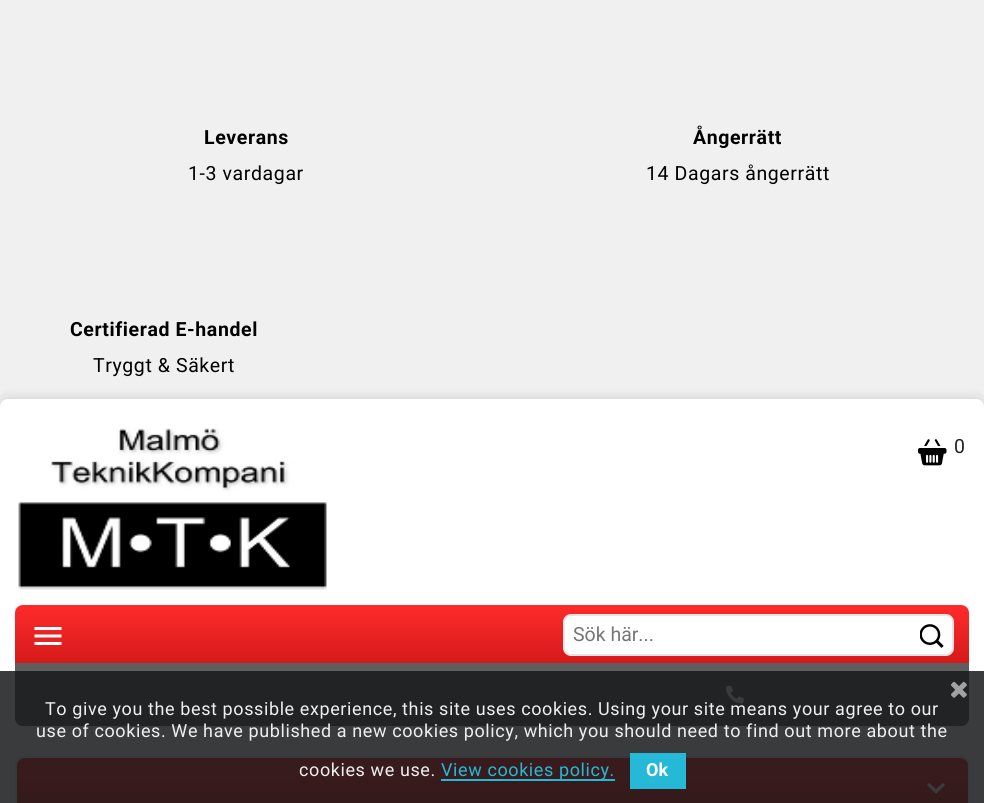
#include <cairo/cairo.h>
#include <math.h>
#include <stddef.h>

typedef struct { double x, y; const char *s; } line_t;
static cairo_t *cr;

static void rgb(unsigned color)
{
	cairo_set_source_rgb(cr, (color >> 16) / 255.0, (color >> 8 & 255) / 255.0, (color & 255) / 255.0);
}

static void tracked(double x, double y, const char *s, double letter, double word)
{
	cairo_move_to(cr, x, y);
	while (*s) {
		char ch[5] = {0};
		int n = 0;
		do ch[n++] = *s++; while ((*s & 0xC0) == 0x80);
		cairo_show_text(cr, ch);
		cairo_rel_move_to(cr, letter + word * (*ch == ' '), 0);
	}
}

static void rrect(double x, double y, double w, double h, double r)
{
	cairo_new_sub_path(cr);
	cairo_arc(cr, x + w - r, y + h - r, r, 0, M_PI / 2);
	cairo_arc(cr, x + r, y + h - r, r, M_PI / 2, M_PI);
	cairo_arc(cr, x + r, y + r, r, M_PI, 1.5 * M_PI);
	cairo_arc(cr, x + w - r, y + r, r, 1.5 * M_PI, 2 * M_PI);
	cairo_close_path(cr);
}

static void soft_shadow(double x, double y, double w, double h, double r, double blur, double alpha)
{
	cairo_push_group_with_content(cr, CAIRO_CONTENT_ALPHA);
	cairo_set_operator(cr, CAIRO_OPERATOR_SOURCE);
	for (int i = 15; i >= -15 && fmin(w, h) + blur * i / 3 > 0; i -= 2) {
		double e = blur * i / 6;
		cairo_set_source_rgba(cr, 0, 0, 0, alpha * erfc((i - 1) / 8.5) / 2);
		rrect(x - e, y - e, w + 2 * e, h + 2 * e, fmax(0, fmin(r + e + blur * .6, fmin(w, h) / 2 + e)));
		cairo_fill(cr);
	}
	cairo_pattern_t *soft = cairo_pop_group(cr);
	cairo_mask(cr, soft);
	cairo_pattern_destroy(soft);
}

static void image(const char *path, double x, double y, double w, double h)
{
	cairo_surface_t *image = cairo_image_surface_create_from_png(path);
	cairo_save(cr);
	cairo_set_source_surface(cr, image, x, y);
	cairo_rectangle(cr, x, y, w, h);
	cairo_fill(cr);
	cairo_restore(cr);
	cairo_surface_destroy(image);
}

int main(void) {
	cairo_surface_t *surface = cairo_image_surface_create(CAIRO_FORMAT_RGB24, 984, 803);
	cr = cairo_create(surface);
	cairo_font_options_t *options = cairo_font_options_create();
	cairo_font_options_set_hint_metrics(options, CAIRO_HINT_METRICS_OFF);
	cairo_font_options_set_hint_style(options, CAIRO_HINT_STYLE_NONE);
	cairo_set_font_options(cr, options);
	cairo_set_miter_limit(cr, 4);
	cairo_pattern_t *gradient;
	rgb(0xf0f0f0);
	cairo_paint(cr);
	rgb(0x000000);
	soft_shadow(-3, 396, 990, 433, 11, 5, 0.1);
	rgb(0xffffff);
	rrect(0, 399, 984, 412, 8);
	cairo_fill(cr);
	image("img/1.png", 18, 428, 309, 162);
	image("img/2.png", 918, 439, 29, 27);
	gradient = cairo_pattern_create_linear(492, 604, 492, 663);
	cairo_pattern_add_color_stop_rgba(gradient, 0, 1, 0.169, 0.169, 1);
	cairo_pattern_add_color_stop_rgba(gradient, 1, 0.839, 0.102, 0.102, 1);
	cairo_set_source(cr, gradient);
	cairo_pattern_destroy(gradient);
	cairo_new_path(cr);
	cairo_move_to(cr, 23, 605);
	cairo_line_to(cr, 961, 605);
	cairo_curve_to(cr, 965.5, 605, 969, 608.5, 969, 613);
	cairo_line_to(cr, 969, 663);
	cairo_line_to(cr, 15, 663);
	cairo_line_to(cr, 15, 613);
	cairo_curve_to(cr, 15, 608.5, 18.5, 605, 23, 605);
	cairo_close_path(cr);
	cairo_fill(cr);
	image("img/3.png", 34, 627, 28, 18);
	rgb(0xffffff);
	rrect(564, 615, 389, 40, 7);
	cairo_fill_preserve(cr);
	rgb(0xe6e6e6);
	cairo_stroke(cr);
	image("img/4.png", 920, 624, 24, 24);
	rgb(0x5e5e5e);
	cairo_new_path(cr);
	cairo_move_to(cr, 15, 663);
	cairo_line_to(cr, 969, 663);
	cairo_line_to(cr, 969, 718);
	cairo_curve_to(cr, 969, 722.5, 965.5, 726, 961, 726);
	cairo_line_to(cr, 23, 726);
	cairo_curve_to(cr, 18.5, 726, 15, 722.5, 15, 718);
	cairo_close_path(cr);
	cairo_fill(cr);
	image("img/5.png", 726, 686, 18, 18);
	rrect(16, 757, 952, 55, 7);
	rgb(0xedecec);
	cairo_stroke(cr);
	gradient = cairo_pattern_create_linear(492, 757, 492, 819);
	cairo_pattern_add_color_stop_rgba(gradient, 0, 1, 0.169, 0.169, 1);
	cairo_pattern_add_color_stop_rgba(gradient, 1, 0.839, 0.102, 0.102, 1);
	cairo_set_source(cr, gradient);
	cairo_pattern_destroy(gradient);
	cairo_new_path(cr);
	cairo_move_to(cr, 25, 758);
	cairo_line_to(cr, 960, 758);
	cairo_curve_to(cr, 964.5, 758, 968, 761.5, 968, 766);
	cairo_line_to(cr, 968, 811);
	cairo_line_to(cr, 17, 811);
	cairo_line_to(cr, 17, 766);
	cairo_curve_to(cr, 17, 761.5, 20.5, 758, 25, 758);
	cairo_close_path(cr);
	cairo_fill(cr);
	rgb(0xffffff);
	cairo_new_path(cr);
	cairo_move_to(cr, 929, 782.5);
	cairo_line_to(cr, 936, 789.5);
	cairo_line_to(cr, 943, 782.5);
	cairo_line_to(cr, 945, 785);
	cairo_line_to(cr, 936, 794);
	cairo_line_to(cr, 927, 785);
	cairo_close_path(cr);
	cairo_fill(cr);
	cairo_set_source_rgba(cr, 0.09, 0.098, 0.11, 0.85);
	cairo_rectangle(cr, 0, 671, 984, 132);
	cairo_fill(cr);
	image("img/6.png", 951, 681, 16, 17);
	rgb(0x25b9d7);
	cairo_rectangle(cr, 441, 779, 174, 2);
	cairo_fill(cr);
	cairo_rectangle(cr, 630, 753, 56, 36);
	cairo_fill(cr);
	cairo_select_font_face(cr, "Roboto", CAIRO_FONT_SLANT_NORMAL, CAIRO_FONT_WEIGHT_BOLD);
	cairo_set_font_size(cr, 19.5);
	rgb(0x000000);
	tracked(204, 144, "Leverans", 0.6, 0);
	cairo_select_font_face(cr, "Roboto", CAIRO_FONT_SLANT_NORMAL, CAIRO_FONT_WEIGHT_NORMAL);
	tracked(188, 180, "1-3 vardagar", 0.6, 0);
	cairo_select_font_face(cr, "Roboto", CAIRO_FONT_SLANT_NORMAL, CAIRO_FONT_WEIGHT_BOLD);
	tracked(693, 144, "Ångerrätt", 0.6, 0);
	cairo_select_font_face(cr, "Roboto", CAIRO_FONT_SLANT_NORMAL, CAIRO_FONT_WEIGHT_NORMAL);
	tracked(646, 180, "14 Dagars ångerrätt", 0.6, 0);
	cairo_select_font_face(cr, "Roboto", CAIRO_FONT_SLANT_NORMAL, CAIRO_FONT_WEIGHT_BOLD);
	tracked(70, 336, "Certifierad E-handel", 0.6, 0);
	cairo_select_font_face(cr, "Roboto", CAIRO_FONT_SLANT_NORMAL, CAIRO_FONT_WEIGHT_NORMAL);
	tracked(93, 372, "Tryggt & Säkert", 0.6, 0);
	rgb(0x222222);
	tracked(954, 453, "0", 0.6, 0);
	rgb(0x757575);
	cairo_move_to(cr, 573, 641);
	cairo_show_text(cr, "Sök här...");
	cairo_set_font_size(cr, 18);
	rgb(0xefefef);
	{
		static const line_t items[] = {
			{45, 715, "To give you the best possible experience, this site uses cookies. Using your site means your agree to our"},
			{36, 737, "use of cookies. We have published a new cookies policy, which you should need to find out more about the"},
			{299, 776, "cookies we use."},
		};
		for (size_t i = 0; i < sizeof items / sizeof *items; i++) {
			tracked(items[i].x, items[i].y, items[i].s, 0.6, 0);
		}
	}
	rgb(0x25b9d7);
	tracked(441, 776, "View cookies policy.", 0.6, 0);
	cairo_select_font_face(cr, "Roboto", CAIRO_FONT_SLANT_NORMAL, CAIRO_FONT_WEIGHT_BOLD);
	rgb(0xffffff);
	cairo_move_to(cr, 646, 776);
	cairo_show_text(cr, "Ok");
	cairo_surface_write_to_png(surface, "page.png");
	cairo_font_options_destroy(options);
	cairo_destroy(cr);
	cairo_surface_destroy(surface);
	return 0;
}
